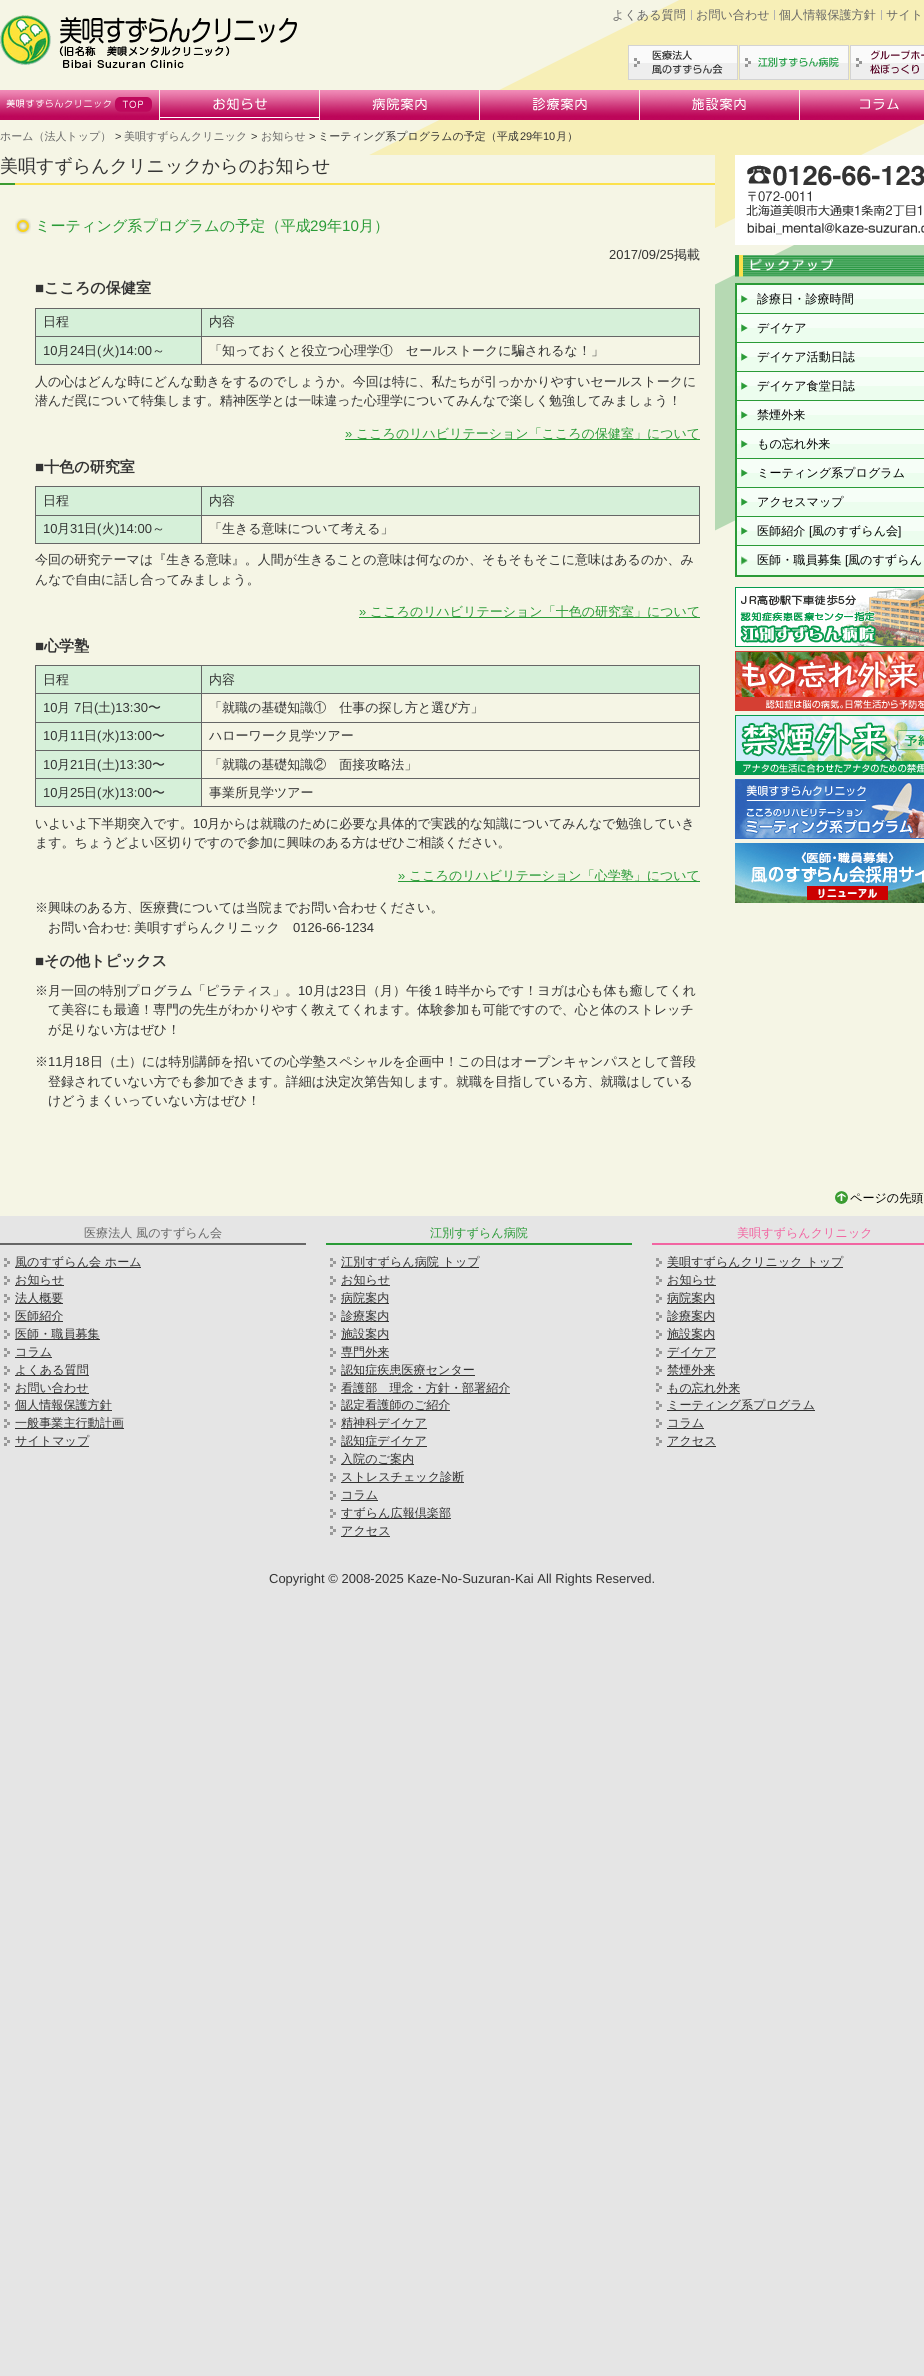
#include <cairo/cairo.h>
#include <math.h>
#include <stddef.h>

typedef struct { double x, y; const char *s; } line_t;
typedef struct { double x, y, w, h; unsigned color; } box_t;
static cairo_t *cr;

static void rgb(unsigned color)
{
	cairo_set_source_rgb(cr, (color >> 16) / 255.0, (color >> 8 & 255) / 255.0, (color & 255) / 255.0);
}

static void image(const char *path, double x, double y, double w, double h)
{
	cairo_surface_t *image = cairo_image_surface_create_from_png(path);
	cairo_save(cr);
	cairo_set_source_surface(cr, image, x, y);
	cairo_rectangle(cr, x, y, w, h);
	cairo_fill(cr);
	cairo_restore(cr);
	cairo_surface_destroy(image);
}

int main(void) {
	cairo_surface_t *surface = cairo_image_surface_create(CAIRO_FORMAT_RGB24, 924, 2376);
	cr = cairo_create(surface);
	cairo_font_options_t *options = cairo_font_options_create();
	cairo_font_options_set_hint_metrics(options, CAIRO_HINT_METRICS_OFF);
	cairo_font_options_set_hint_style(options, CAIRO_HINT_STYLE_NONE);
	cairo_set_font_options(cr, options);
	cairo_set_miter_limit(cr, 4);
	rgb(0xe5e5e5);
	cairo_paint(cr);
	rgb(0xf5f5e5);
	cairo_rectangle(cr, 0, 751, 924, 465);
	cairo_fill(cr);
	image("img/1.png", 0, 0, 924, 751);
	image("img/2.png", 0, 15, 297, 53);
	{
		static const box_t items[] = {
			{691, 10, 1, 10, 0xb2b2b2},
			{774, 10, 1, 10, 0xb2b2b2},
			{881, 10, 1, 10, 0xb2b2b2},
		};
		for (size_t i = 0; i < sizeof items / sizeof *items; i++) {
			rgb(items[i].color);
			cairo_rectangle(cr, items[i].x, items[i].y, items[i].w, items[i].h);
			cairo_fill(cr);
		}
	}
	image("img/3.png", 628, 45, 110, 35);
	image("img/4.png", 739, 45, 110, 35);
	image("img/5.png", 850, 45, 74, 35);
	image("img/6.png", 0, 90, 159, 30);
	image("img/7.png", 160, 90, 159, 30);
	image("img/8.png", 320, 90, 160, 30);
	image("img/9.png", 480, 90, 160, 30);
	image("img/10.png", 640, 90, 160, 30);
	image("img/11.png", 800, 90, 124, 30);
	rgb(0xf5f5e5);
	cairo_rectangle(cr, 0, 155, 715, 596);
	cairo_fill(cr);
	image("img/12.png", 0, 183, 715, 2);
	image("img/13.png", 15, 218, 16, 16);
	{
		static const box_t items[] = {
			{36, 309, 165, 27, 0xd6f0d9},
			{201, 308, 499, 1, 0x666666},
			{201, 336, 499, 1, 0x666666},
			{699, 336, 1, 29, 0x666666},
			{201, 364, 499, 1, 0x666666},
			{201, 336, 1, 29, 0x666666},
			{35, 336, 167, 1, 0x666666},
			{201, 308, 1, 29, 0x666666},
			{35, 308, 167, 1, 0x666666},
			{35, 364, 167, 1, 0x666666},
			{35, 336, 1, 29, 0x666666},
			{35, 308, 1, 29, 0x666666},
			{202, 309, 497, 27, 0xd6f0d9},
			{699, 308, 1, 29, 0x666666},
			{36, 337, 165, 27, 0xd6f0d9},
			{345, 439, 355, 1, 0x2a9b37},
			{36, 487, 165, 28, 0xd6f0d9},
			{201, 486, 499, 1, 0x666666},
			{201, 515, 499, 1, 0x666666},
			{699, 515, 1, 29, 0x666666},
			{201, 543, 499, 1, 0x666666},
			{201, 515, 1, 29, 0x666666},
			{35, 515, 167, 1, 0x666666},
			{201, 486, 1, 30, 0x666666},
			{35, 486, 167, 1, 0x666666},
			{35, 543, 167, 1, 0x666666},
			{35, 515, 1, 29, 0x666666},
			{35, 486, 1, 30, 0x666666},
			{202, 487, 497, 28, 0xd6f0d9},
			{699, 486, 1, 30, 0x666666},
			{36, 516, 165, 27, 0xd6f0d9},
			{359, 617, 341, 1, 0x2a9b37},
			{36, 666, 165, 27, 0xd6f0d9},
			{201, 665, 499, 1, 0x666666},
			{201, 693, 499, 1, 0x666666},
			{201, 722, 499, 1, 0x666666},
			{201, 750, 499, 1, 0x666666},
			{201, 778, 499, 1, 0x666666},
			{699, 778, 1, 29, 0x666666},
			{201, 806, 499, 1, 0x666666},
			{201, 778, 1, 29, 0x666666},
			{35, 778, 167, 1, 0x666666},
			{201, 750, 1, 29, 0x666666},
			{35, 750, 167, 1, 0x666666},
			{201, 722, 1, 29, 0x666666},
			{35, 722, 167, 1, 0x666666},
			{201, 693, 1, 30, 0x666666},
			{35, 693, 167, 1, 0x666666},
			{201, 665, 1, 29, 0x666666},
			{35, 665, 167, 1, 0x666666},
			{35, 806, 167, 1, 0x666666},
			{35, 778, 1, 29, 0x666666},
			{35, 750, 1, 29, 0x666666},
			{35, 722, 1, 29, 0x666666},
			{35, 693, 1, 30, 0x666666},
			{35, 665, 1, 29, 0x666666},
			{202, 666, 497, 27, 0xd6f0d9},
			{699, 750, 1, 29, 0x666666},
			{699, 722, 1, 29, 0x666666},
			{699, 693, 1, 30, 0x666666},
			{699, 665, 1, 29, 0x666666},
			{36, 694, 165, 28, 0xd6f0d9},
			{36, 723, 165, 27, 0xd6f0d9},
			{36, 751, 165, 27, 0xd6f0d9},
			{36, 779, 165, 27, 0xd6f0d9},
			{398, 881, 302, 1, 0x2a9b37},
		};
		for (size_t i = 0; i < sizeof items / sizeof *items; i++) {
			rgb(items[i].color);
			cairo_rectangle(cr, items[i].x, items[i].y, items[i].w, items[i].h);
			cairo_fill(cr);
		}
	}
	image("img/14.png", 735, 155, 189, 90);
	image("img/15.png", 735, 255, 189, 22);
	{
		static const box_t items[] = {
			{735, 283, 189, 2, 0x2a9b37},
			{735, 575, 189, 2, 0x2a9b37},
			{735, 284, 2, 29, 0x2a9b37},
		};
		for (size_t i = 0; i < sizeof items / sizeof *items; i++) {
			rgb(items[i].color);
			cairo_rectangle(cr, items[i].x, items[i].y, items[i].w, items[i].h);
			cairo_fill(cr);
		}
	}
	image("img/16.png", 737, 285, 187, 28);
	cairo_rectangle(cr, 735, 313, 189, 1);
	cairo_fill(cr);
	cairo_rectangle(cr, 735, 313, 2, 29);
	cairo_fill(cr);
	image("img/16.png", 737, 314, 187, 28);
	cairo_rectangle(cr, 735, 342, 189, 1);
	cairo_fill(cr);
	cairo_rectangle(cr, 735, 342, 2, 29);
	cairo_fill(cr);
	image("img/16.png", 737, 343, 187, 28);
	cairo_rectangle(cr, 735, 371, 189, 1);
	cairo_fill(cr);
	cairo_rectangle(cr, 735, 371, 2, 29);
	cairo_fill(cr);
	image("img/16.png", 737, 372, 187, 28);
	cairo_rectangle(cr, 735, 400, 189, 1);
	cairo_fill(cr);
	cairo_rectangle(cr, 735, 400, 2, 29);
	cairo_fill(cr);
	image("img/16.png", 737, 401, 187, 28);
	cairo_rectangle(cr, 735, 429, 189, 1);
	cairo_fill(cr);
	cairo_rectangle(cr, 735, 429, 2, 29);
	cairo_fill(cr);
	image("img/16.png", 737, 430, 187, 28);
	cairo_rectangle(cr, 735, 458, 189, 1);
	cairo_fill(cr);
	cairo_rectangle(cr, 735, 458, 2, 29);
	cairo_fill(cr);
	image("img/16.png", 737, 459, 187, 28);
	cairo_rectangle(cr, 735, 487, 189, 1);
	cairo_fill(cr);
	cairo_rectangle(cr, 735, 487, 2, 29);
	cairo_fill(cr);
	image("img/16.png", 737, 488, 187, 28);
	cairo_rectangle(cr, 735, 516, 189, 1);
	cairo_fill(cr);
	cairo_rectangle(cr, 735, 516, 2, 29);
	cairo_fill(cr);
	image("img/16.png", 737, 517, 187, 28);
	cairo_rectangle(cr, 735, 545, 189, 1);
	cairo_fill(cr);
	cairo_rectangle(cr, 735, 545, 2, 30);
	cairo_fill(cr);
	image("img/17.png", 737, 546, 187, 29);
	image("img/18.png", 735, 587, 189, 60);
	image("img/19.png", 735, 651, 189, 60);
	image("img/20.png", 735, 715, 189, 60);
	image("img/21.png", 735, 779, 189, 60);
	image("img/22.png", 735, 843, 189, 60);
	image("img/23.png", 835, 1191, 13, 13);
	rgb(0x666666);
	cairo_rectangle(cr, 0, 1243, 306, 2);
	cairo_fill(cr);
	image("img/24.png", 4, 1258, 6, 9);
	rgb(0x333333);
	cairo_rectangle(cr, 15, 1267, 126, 1);
	cairo_fill(cr);
	image("img/24.png", 4, 1276, 6, 9);
	cairo_rectangle(cr, 15, 1285, 49, 1);
	cairo_fill(cr);
	image("img/24.png", 4, 1294, 6, 9);
	cairo_rectangle(cr, 15, 1303, 48, 1);
	cairo_fill(cr);
	image("img/24.png", 4, 1312, 6, 9);
	cairo_rectangle(cr, 15, 1321, 48, 1);
	cairo_fill(cr);
	image("img/24.png", 4, 1330, 6, 9);
	cairo_rectangle(cr, 15, 1339, 85, 1);
	cairo_fill(cr);
	image("img/24.png", 4, 1348, 6, 9);
	cairo_rectangle(cr, 15, 1357, 37, 1);
	cairo_fill(cr);
	image("img/24.png", 4, 1366, 6, 9);
	cairo_rectangle(cr, 15, 1375, 74, 1);
	cairo_fill(cr);
	image("img/24.png", 4, 1383, 6, 9);
	cairo_rectangle(cr, 15, 1393, 74, 1);
	cairo_fill(cr);
	image("img/24.png", 4, 1401, 6, 9);
	cairo_rectangle(cr, 15, 1410, 97, 1);
	cairo_fill(cr);
	image("img/24.png", 4, 1419, 6, 9);
	cairo_rectangle(cr, 15, 1428, 109, 1);
	cairo_fill(cr);
	image("img/24.png", 4, 1437, 6, 9);
	cairo_rectangle(cr, 15, 1446, 74, 1);
	cairo_fill(cr);
	rgb(0x2a9b37);
	cairo_rectangle(cr, 326, 1243, 306, 2);
	cairo_fill(cr);
	image("img/24.png", 330, 1258, 6, 9);
	rgb(0x333333);
	cairo_rectangle(cr, 341, 1267, 138, 1);
	cairo_fill(cr);
	image("img/24.png", 330, 1276, 6, 9);
	cairo_rectangle(cr, 341, 1285, 49, 1);
	cairo_fill(cr);
	image("img/24.png", 330, 1294, 6, 9);
	cairo_rectangle(cr, 341, 1303, 48, 1);
	cairo_fill(cr);
	image("img/24.png", 330, 1312, 6, 9);
	cairo_rectangle(cr, 341, 1321, 48, 1);
	cairo_fill(cr);
	image("img/24.png", 330, 1330, 6, 9);
	cairo_rectangle(cr, 341, 1339, 48, 1);
	cairo_fill(cr);
	image("img/24.png", 330, 1348, 6, 9);
	cairo_rectangle(cr, 341, 1357, 48, 1);
	cairo_fill(cr);
	image("img/24.png", 330, 1366, 6, 9);
	cairo_rectangle(cr, 341, 1375, 134, 1);
	cairo_fill(cr);
	image("img/24.png", 330, 1383, 6, 9);
	cairo_rectangle(cr, 341, 1393, 169, 1);
	cairo_fill(cr);
	image("img/24.png", 330, 1401, 6, 9);
	cairo_rectangle(cr, 341, 1410, 109, 1);
	cairo_fill(cr);
	image("img/24.png", 330, 1419, 6, 9);
	cairo_rectangle(cr, 341, 1428, 86, 1);
	cairo_fill(cr);
	image("img/24.png", 330, 1437, 6, 9);
	cairo_rectangle(cr, 341, 1446, 86, 1);
	cairo_fill(cr);
	image("img/24.png", 330, 1455, 6, 9);
	cairo_rectangle(cr, 341, 1464, 73, 1);
	cairo_fill(cr);
	image("img/24.png", 330, 1473, 6, 9);
	cairo_rectangle(cr, 341, 1482, 123, 1);
	cairo_fill(cr);
	image("img/24.png", 330, 1491, 6, 9);
	cairo_rectangle(cr, 341, 1500, 37, 1);
	cairo_fill(cr);
	image("img/24.png", 330, 1509, 6, 9);
	cairo_rectangle(cr, 341, 1518, 110, 1);
	cairo_fill(cr);
	image("img/24.png", 330, 1526, 6, 9);
	cairo_rectangle(cr, 341, 1536, 49, 1);
	cairo_fill(cr);
	rgb(0xf265a2);
	cairo_rectangle(cr, 652, 1243, 272, 2);
	cairo_fill(cr);
	image("img/24.png", 656, 1258, 6, 9);
	rgb(0x333333);
	cairo_rectangle(cr, 667, 1267, 176, 1);
	cairo_fill(cr);
	image("img/24.png", 656, 1276, 6, 9);
	cairo_rectangle(cr, 667, 1285, 49, 1);
	cairo_fill(cr);
	image("img/24.png", 656, 1294, 6, 9);
	cairo_rectangle(cr, 667, 1303, 48, 1);
	cairo_fill(cr);
	image("img/24.png", 656, 1312, 6, 9);
	cairo_rectangle(cr, 667, 1321, 48, 1);
	cairo_fill(cr);
	image("img/24.png", 656, 1330, 6, 9);
	cairo_rectangle(cr, 667, 1339, 48, 1);
	cairo_fill(cr);
	image("img/24.png", 656, 1348, 6, 9);
	cairo_rectangle(cr, 667, 1357, 49, 1);
	cairo_fill(cr);
	image("img/24.png", 656, 1366, 6, 9);
	cairo_rectangle(cr, 667, 1375, 48, 1);
	cairo_fill(cr);
	image("img/24.png", 656, 1383, 6, 9);
	cairo_rectangle(cr, 667, 1393, 73, 1);
	cairo_fill(cr);
	image("img/24.png", 656, 1401, 6, 9);
	cairo_rectangle(cr, 667, 1410, 148, 1);
	cairo_fill(cr);
	image("img/24.png", 656, 1419, 6, 9);
	cairo_rectangle(cr, 667, 1428, 37, 1);
	cairo_fill(cr);
	image("img/24.png", 656, 1437, 6, 9);
	cairo_rectangle(cr, 667, 1446, 49, 1);
	cairo_fill(cr);
	cairo_select_font_face(cr, "WenQuanYi Zen Hei Medium", CAIRO_FONT_SLANT_NORMAL, CAIRO_FONT_WEIGHT_NORMAL);
	cairo_set_font_size(cr, 12.1);
	rgb(0x666666);
	{
		static const line_t items[] = {
			{612, 19, "よくある質問"},
			{696, 19, "お問い合わせ"},
			{779, 19, "個人情報保護方針"},
			{886, 19, "サイト"},
		};
		for (size_t i = 0; i < sizeof items / sizeof *items; i++) {
			cairo_move_to(cr, items[i].x, items[i].y);
			cairo_show_text(cr, items[i].s);
		}
	}
	cairo_set_font_size(cr, 11);
	cairo_move_to(cr, 0, 140);
	cairo_show_text(cr, "ホーム（法人トップ）");
	cairo_select_font_face(cr, "Liberation Sans", CAIRO_FONT_SLANT_NORMAL, CAIRO_FONT_WEIGHT_NORMAL);
	rgb(0x333333);
	cairo_move_to(cr, 115, 140);
	cairo_show_text(cr, ">");
	cairo_select_font_face(cr, "WenQuanYi Zen Hei Medium", CAIRO_FONT_SLANT_NORMAL, CAIRO_FONT_WEIGHT_NORMAL);
	rgb(0x666666);
	cairo_move_to(cr, 124, 140);
	cairo_show_text(cr, "美唄すずらんクリニック");
	cairo_select_font_face(cr, "Liberation Sans", CAIRO_FONT_SLANT_NORMAL, CAIRO_FONT_WEIGHT_NORMAL);
	rgb(0x333333);
	cairo_move_to(cr, 251, 140);
	cairo_show_text(cr, ">");
	cairo_select_font_face(cr, "WenQuanYi Zen Hei Medium", CAIRO_FONT_SLANT_NORMAL, CAIRO_FONT_WEIGHT_NORMAL);
	rgb(0x666666);
	cairo_move_to(cr, 261, 140);
	cairo_show_text(cr, "お知らせ");
	cairo_select_font_face(cr, "Liberation Sans", CAIRO_FONT_SLANT_NORMAL, CAIRO_FONT_WEIGHT_NORMAL);
	rgb(0x333333);
	cairo_move_to(cr, 309, 140);
	cairo_show_text(cr, ">");
	cairo_select_font_face(cr, "WenQuanYi Zen Hei Medium", CAIRO_FONT_SLANT_NORMAL, CAIRO_FONT_WEIGHT_NORMAL);
	cairo_move_to(cr, 318, 140);
	cairo_show_text(cr, "ミーティング系プログラムの予定（平成");
	cairo_select_font_face(cr, "Liberation Sans", CAIRO_FONT_SLANT_NORMAL, CAIRO_FONT_WEIGHT_NORMAL);
	cairo_move_to(cr, 520, 140);
	cairo_show_text(cr, "29");
	cairo_select_font_face(cr, "WenQuanYi Zen Hei Medium", CAIRO_FONT_SLANT_NORMAL, CAIRO_FONT_WEIGHT_NORMAL);
	cairo_move_to(cr, 532, 140);
	cairo_show_text(cr, "年");
	cairo_select_font_face(cr, "Liberation Sans", CAIRO_FONT_SLANT_NORMAL, CAIRO_FONT_WEIGHT_NORMAL);
	cairo_move_to(cr, 543, 140);
	cairo_show_text(cr, "10");
	cairo_select_font_face(cr, "WenQuanYi Zen Hei Medium", CAIRO_FONT_SLANT_NORMAL, CAIRO_FONT_WEIGHT_NORMAL);
	cairo_move_to(cr, 556, 140);
	cairo_show_text(cr, "月）");
	cairo_set_font_size(cr, 18);
	cairo_move_to(cr, 0, 172);
	cairo_show_text(cr, "美唄すずらんクリニックからのお知らせ");
	cairo_set_font_size(cr, 15.1);
	rgb(0x2a9b37);
	cairo_move_to(cr, 35, 231);
	cairo_show_text(cr, "ミーティング系プログラムの予定（平成");
	cairo_select_font_face(cr, "Liberation Sans", CAIRO_FONT_SLANT_NORMAL, CAIRO_FONT_WEIGHT_NORMAL);
	cairo_move_to(cr, 310, 231);
	cairo_show_text(cr, "29");
	cairo_select_font_face(cr, "WenQuanYi Zen Hei Medium", CAIRO_FONT_SLANT_NORMAL, CAIRO_FONT_WEIGHT_NORMAL);
	cairo_move_to(cr, 327, 231);
	cairo_show_text(cr, "年");
	cairo_select_font_face(cr, "Liberation Sans", CAIRO_FONT_SLANT_NORMAL, CAIRO_FONT_WEIGHT_NORMAL);
	cairo_move_to(cr, 342, 231);
	cairo_show_text(cr, "10");
	cairo_select_font_face(cr, "WenQuanYi Zen Hei Medium", CAIRO_FONT_SLANT_NORMAL, CAIRO_FONT_WEIGHT_NORMAL);
	cairo_move_to(cr, 359, 231);
	cairo_show_text(cr, "月）");
	cairo_select_font_face(cr, "Liberation Sans", CAIRO_FONT_SLANT_NORMAL, CAIRO_FONT_WEIGHT_NORMAL);
	cairo_set_font_size(cr, 13);
	rgb(0x333333);
	cairo_move_to(cr, 609, 259);
	cairo_show_text(cr, "2017/09/25");
	cairo_select_font_face(cr, "WenQuanYi Zen Hei Medium", CAIRO_FONT_SLANT_NORMAL, CAIRO_FONT_WEIGHT_NORMAL);
	cairo_move_to(cr, 674, 259);
	cairo_show_text(cr, "掲載");
	cairo_select_font_face(cr, "Liberation Sans", CAIRO_FONT_SLANT_NORMAL, CAIRO_FONT_WEIGHT_BOLD);
	cairo_set_font_size(cr, 15.1);
	cairo_move_to(cr, 35, 293);
	cairo_show_text(cr, "■");
	cairo_select_font_face(cr, "WenQuanYi Zen Hei", CAIRO_FONT_SLANT_NORMAL, CAIRO_FONT_WEIGHT_BOLD);
	cairo_move_to(cr, 44, 293);
	cairo_show_text(cr, "こころの保健室");
	cairo_select_font_face(cr, "WenQuanYi Zen Hei Medium", CAIRO_FONT_SLANT_NORMAL, CAIRO_FONT_WEIGHT_NORMAL);
	cairo_set_font_size(cr, 13);
	cairo_move_to(cr, 43, 326);
	cairo_show_text(cr, "日程");
	cairo_move_to(cr, 209, 326);
	cairo_show_text(cr, "内容");
	cairo_select_font_face(cr, "Liberation Sans", CAIRO_FONT_SLANT_NORMAL, CAIRO_FONT_WEIGHT_NORMAL);
	cairo_move_to(cr, 43, 355);
	cairo_show_text(cr, "10");
	cairo_select_font_face(cr, "WenQuanYi Zen Hei Medium", CAIRO_FONT_SLANT_NORMAL, CAIRO_FONT_WEIGHT_NORMAL);
	cairo_move_to(cr, 57, 355);
	cairo_show_text(cr, "月");
	cairo_select_font_face(cr, "Liberation Sans", CAIRO_FONT_SLANT_NORMAL, CAIRO_FONT_WEIGHT_NORMAL);
	cairo_move_to(cr, 70, 355);
	cairo_show_text(cr, "24");
	cairo_select_font_face(cr, "WenQuanYi Zen Hei Medium", CAIRO_FONT_SLANT_NORMAL, CAIRO_FONT_WEIGHT_NORMAL);
	cairo_move_to(cr, 84, 355);
	cairo_show_text(cr, "日");
	cairo_select_font_face(cr, "Liberation Sans", CAIRO_FONT_SLANT_NORMAL, CAIRO_FONT_WEIGHT_NORMAL);
	cairo_move_to(cr, 97, 355);
	cairo_show_text(cr, "(");
	cairo_select_font_face(cr, "WenQuanYi Zen Hei Medium", CAIRO_FONT_SLANT_NORMAL, CAIRO_FONT_WEIGHT_NORMAL);
	cairo_move_to(cr, 102, 355);
	cairo_show_text(cr, "火");
	cairo_select_font_face(cr, "Liberation Sans", CAIRO_FONT_SLANT_NORMAL, CAIRO_FONT_WEIGHT_NORMAL);
	cairo_move_to(cr, 115, 355);
	cairo_show_text(cr, ")14:00");
	cairo_select_font_face(cr, "WenQuanYi Zen Hei Medium", CAIRO_FONT_SLANT_NORMAL, CAIRO_FONT_WEIGHT_NORMAL);
	{
		static const line_t items[] = {
			{152, 355, "～"},
			{209, 355, "「知っておくと役立つ心理学①　セールストークに騙されるな！」"},
			{35, 386, "人の心はどんな時にどんな動きをするのでしょうか。今回は特に、私たちが引っかかりやすいセールストークに"},
			{35, 405, "潜んだ罠について特集します。精神医学とは一味違った心理学についてみんなで楽しく勉強してみましょう！"},
		};
		for (size_t i = 0; i < sizeof items / sizeof *items; i++) {
			cairo_move_to(cr, items[i].x, items[i].y);
			cairo_show_text(cr, items[i].s);
		}
	}
	cairo_select_font_face(cr, "Liberation Sans", CAIRO_FONT_SLANT_NORMAL, CAIRO_FONT_WEIGHT_NORMAL);
	rgb(0x2a9b37);
	cairo_move_to(cr, 345, 438);
	cairo_show_text(cr, "»");
	cairo_select_font_face(cr, "WenQuanYi Zen Hei Medium", CAIRO_FONT_SLANT_NORMAL, CAIRO_FONT_WEIGHT_NORMAL);
	cairo_move_to(cr, 356, 438);
	cairo_show_text(cr, "こころのリハビリテーション「こころの保健室」について");
	cairo_select_font_face(cr, "Liberation Sans", CAIRO_FONT_SLANT_NORMAL, CAIRO_FONT_WEIGHT_BOLD);
	cairo_set_font_size(cr, 15.1);
	rgb(0x333333);
	cairo_move_to(cr, 35, 472);
	cairo_show_text(cr, "■");
	cairo_select_font_face(cr, "WenQuanYi Zen Hei", CAIRO_FONT_SLANT_NORMAL, CAIRO_FONT_WEIGHT_BOLD);
	cairo_move_to(cr, 44, 472);
	cairo_show_text(cr, "十色の研究室");
	cairo_select_font_face(cr, "WenQuanYi Zen Hei Medium", CAIRO_FONT_SLANT_NORMAL, CAIRO_FONT_WEIGHT_NORMAL);
	cairo_set_font_size(cr, 13);
	cairo_move_to(cr, 43, 505);
	cairo_show_text(cr, "日程");
	cairo_move_to(cr, 209, 505);
	cairo_show_text(cr, "内容");
	cairo_select_font_face(cr, "Liberation Sans", CAIRO_FONT_SLANT_NORMAL, CAIRO_FONT_WEIGHT_NORMAL);
	cairo_move_to(cr, 43, 533);
	cairo_show_text(cr, "10");
	cairo_select_font_face(cr, "WenQuanYi Zen Hei Medium", CAIRO_FONT_SLANT_NORMAL, CAIRO_FONT_WEIGHT_NORMAL);
	cairo_move_to(cr, 57, 533);
	cairo_show_text(cr, "月");
	cairo_select_font_face(cr, "Liberation Sans", CAIRO_FONT_SLANT_NORMAL, CAIRO_FONT_WEIGHT_NORMAL);
	cairo_move_to(cr, 70, 533);
	cairo_show_text(cr, "31");
	cairo_select_font_face(cr, "WenQuanYi Zen Hei Medium", CAIRO_FONT_SLANT_NORMAL, CAIRO_FONT_WEIGHT_NORMAL);
	cairo_move_to(cr, 84, 533);
	cairo_show_text(cr, "日");
	cairo_select_font_face(cr, "Liberation Sans", CAIRO_FONT_SLANT_NORMAL, CAIRO_FONT_WEIGHT_NORMAL);
	cairo_move_to(cr, 97, 533);
	cairo_show_text(cr, "(");
	cairo_select_font_face(cr, "WenQuanYi Zen Hei Medium", CAIRO_FONT_SLANT_NORMAL, CAIRO_FONT_WEIGHT_NORMAL);
	cairo_move_to(cr, 102, 533);
	cairo_show_text(cr, "火");
	cairo_select_font_face(cr, "Liberation Sans", CAIRO_FONT_SLANT_NORMAL, CAIRO_FONT_WEIGHT_NORMAL);
	cairo_move_to(cr, 115, 533);
	cairo_show_text(cr, ")14:00");
	cairo_select_font_face(cr, "WenQuanYi Zen Hei Medium", CAIRO_FONT_SLANT_NORMAL, CAIRO_FONT_WEIGHT_NORMAL);
	{
		static const line_t items[] = {
			{152, 533, "～"},
			{209, 533, "「生きる意味について考える」"},
			{35, 564, "今回の研究テーマは『生きる意味』。人間が生きることの意味は何なのか、そもそもそこに意味はあるのか、み"},
			{35, 584, "んなで自由に話し合ってみましょう。"},
		};
		for (size_t i = 0; i < sizeof items / sizeof *items; i++) {
			cairo_move_to(cr, items[i].x, items[i].y);
			cairo_show_text(cr, items[i].s);
		}
	}
	cairo_select_font_face(cr, "Liberation Sans", CAIRO_FONT_SLANT_NORMAL, CAIRO_FONT_WEIGHT_NORMAL);
	rgb(0x2a9b37);
	cairo_move_to(cr, 359, 616);
	cairo_show_text(cr, "»");
	cairo_select_font_face(cr, "WenQuanYi Zen Hei Medium", CAIRO_FONT_SLANT_NORMAL, CAIRO_FONT_WEIGHT_NORMAL);
	cairo_move_to(cr, 370, 616);
	cairo_show_text(cr, "こころのリハビリテーション「十色の研究室」について");
	cairo_select_font_face(cr, "Liberation Sans", CAIRO_FONT_SLANT_NORMAL, CAIRO_FONT_WEIGHT_BOLD);
	cairo_set_font_size(cr, 15.1);
	rgb(0x333333);
	cairo_move_to(cr, 35, 651);
	cairo_show_text(cr, "■");
	cairo_select_font_face(cr, "WenQuanYi Zen Hei", CAIRO_FONT_SLANT_NORMAL, CAIRO_FONT_WEIGHT_BOLD);
	cairo_move_to(cr, 44, 651);
	cairo_show_text(cr, "心学塾");
	cairo_select_font_face(cr, "WenQuanYi Zen Hei Medium", CAIRO_FONT_SLANT_NORMAL, CAIRO_FONT_WEIGHT_NORMAL);
	cairo_set_font_size(cr, 13);
	cairo_move_to(cr, 43, 684);
	cairo_show_text(cr, "日程");
	cairo_move_to(cr, 209, 684);
	cairo_show_text(cr, "内容");
	cairo_select_font_face(cr, "Liberation Sans", CAIRO_FONT_SLANT_NORMAL, CAIRO_FONT_WEIGHT_NORMAL);
	cairo_move_to(cr, 43, 712);
	cairo_show_text(cr, "10");
	cairo_select_font_face(cr, "WenQuanYi Zen Hei Medium", CAIRO_FONT_SLANT_NORMAL, CAIRO_FONT_WEIGHT_NORMAL);
	cairo_move_to(cr, 57, 712);
	cairo_show_text(cr, "月");
	cairo_select_font_face(cr, "Liberation Sans", CAIRO_FONT_SLANT_NORMAL, CAIRO_FONT_WEIGHT_NORMAL);
	cairo_move_to(cr, 74, 712);
	cairo_show_text(cr, "7");
	cairo_select_font_face(cr, "WenQuanYi Zen Hei Medium", CAIRO_FONT_SLANT_NORMAL, CAIRO_FONT_WEIGHT_NORMAL);
	cairo_move_to(cr, 81, 712);
	cairo_show_text(cr, "日");
	cairo_select_font_face(cr, "Liberation Sans", CAIRO_FONT_SLANT_NORMAL, CAIRO_FONT_WEIGHT_NORMAL);
	cairo_move_to(cr, 94, 712);
	cairo_show_text(cr, "(");
	cairo_select_font_face(cr, "WenQuanYi Zen Hei Medium", CAIRO_FONT_SLANT_NORMAL, CAIRO_FONT_WEIGHT_NORMAL);
	cairo_move_to(cr, 98, 712);
	cairo_show_text(cr, "土");
	cairo_select_font_face(cr, "Liberation Sans", CAIRO_FONT_SLANT_NORMAL, CAIRO_FONT_WEIGHT_NORMAL);
	cairo_move_to(cr, 111, 712);
	cairo_show_text(cr, ")13:30");
	cairo_select_font_face(cr, "WenQuanYi Zen Hei Medium", CAIRO_FONT_SLANT_NORMAL, CAIRO_FONT_WEIGHT_NORMAL);
	cairo_move_to(cr, 148, 712);
	cairo_show_text(cr, "〜");
	cairo_move_to(cr, 209, 712);
	cairo_show_text(cr, "「就職の基礎知識①　仕事の探し方と選び方」");
	cairo_select_font_face(cr, "Liberation Sans", CAIRO_FONT_SLANT_NORMAL, CAIRO_FONT_WEIGHT_NORMAL);
	cairo_move_to(cr, 43, 740);
	cairo_show_text(cr, "10");
	cairo_select_font_face(cr, "WenQuanYi Zen Hei Medium", CAIRO_FONT_SLANT_NORMAL, CAIRO_FONT_WEIGHT_NORMAL);
	cairo_move_to(cr, 57, 740);
	cairo_show_text(cr, "月");
	cairo_select_font_face(cr, "Liberation Sans", CAIRO_FONT_SLANT_NORMAL, CAIRO_FONT_WEIGHT_NORMAL);
	cairo_move_to(cr, 70, 740);
	cairo_show_text(cr, "11");
	cairo_select_font_face(cr, "WenQuanYi Zen Hei Medium", CAIRO_FONT_SLANT_NORMAL, CAIRO_FONT_WEIGHT_NORMAL);
	cairo_move_to(cr, 84, 740);
	cairo_show_text(cr, "日");
	cairo_select_font_face(cr, "Liberation Sans", CAIRO_FONT_SLANT_NORMAL, CAIRO_FONT_WEIGHT_NORMAL);
	cairo_move_to(cr, 97, 740);
	cairo_show_text(cr, "(");
	cairo_select_font_face(cr, "WenQuanYi Zen Hei Medium", CAIRO_FONT_SLANT_NORMAL, CAIRO_FONT_WEIGHT_NORMAL);
	cairo_move_to(cr, 102, 740);
	cairo_show_text(cr, "水");
	cairo_select_font_face(cr, "Liberation Sans", CAIRO_FONT_SLANT_NORMAL, CAIRO_FONT_WEIGHT_NORMAL);
	cairo_move_to(cr, 115, 740);
	cairo_show_text(cr, ")13:00");
	cairo_select_font_face(cr, "WenQuanYi Zen Hei Medium", CAIRO_FONT_SLANT_NORMAL, CAIRO_FONT_WEIGHT_NORMAL);
	cairo_move_to(cr, 152, 740);
	cairo_show_text(cr, "〜");
	cairo_move_to(cr, 209, 740);
	cairo_show_text(cr, "ハローワーク見学ツアー");
	cairo_select_font_face(cr, "Liberation Sans", CAIRO_FONT_SLANT_NORMAL, CAIRO_FONT_WEIGHT_NORMAL);
	cairo_move_to(cr, 43, 769);
	cairo_show_text(cr, "10");
	cairo_select_font_face(cr, "WenQuanYi Zen Hei Medium", CAIRO_FONT_SLANT_NORMAL, CAIRO_FONT_WEIGHT_NORMAL);
	cairo_move_to(cr, 57, 769);
	cairo_show_text(cr, "月");
	cairo_select_font_face(cr, "Liberation Sans", CAIRO_FONT_SLANT_NORMAL, CAIRO_FONT_WEIGHT_NORMAL);
	cairo_move_to(cr, 70, 769);
	cairo_show_text(cr, "21");
	cairo_select_font_face(cr, "WenQuanYi Zen Hei Medium", CAIRO_FONT_SLANT_NORMAL, CAIRO_FONT_WEIGHT_NORMAL);
	cairo_move_to(cr, 84, 769);
	cairo_show_text(cr, "日");
	cairo_select_font_face(cr, "Liberation Sans", CAIRO_FONT_SLANT_NORMAL, CAIRO_FONT_WEIGHT_NORMAL);
	cairo_move_to(cr, 97, 769);
	cairo_show_text(cr, "(");
	cairo_select_font_face(cr, "WenQuanYi Zen Hei Medium", CAIRO_FONT_SLANT_NORMAL, CAIRO_FONT_WEIGHT_NORMAL);
	cairo_move_to(cr, 102, 769);
	cairo_show_text(cr, "土");
	cairo_select_font_face(cr, "Liberation Sans", CAIRO_FONT_SLANT_NORMAL, CAIRO_FONT_WEIGHT_NORMAL);
	cairo_move_to(cr, 115, 769);
	cairo_show_text(cr, ")13:30");
	cairo_select_font_face(cr, "WenQuanYi Zen Hei Medium", CAIRO_FONT_SLANT_NORMAL, CAIRO_FONT_WEIGHT_NORMAL);
	cairo_move_to(cr, 152, 769);
	cairo_show_text(cr, "〜");
	cairo_move_to(cr, 209, 769);
	cairo_show_text(cr, "「就職の基礎知識②　面接攻略法」");
	cairo_select_font_face(cr, "Liberation Sans", CAIRO_FONT_SLANT_NORMAL, CAIRO_FONT_WEIGHT_NORMAL);
	cairo_move_to(cr, 43, 797);
	cairo_show_text(cr, "10");
	cairo_select_font_face(cr, "WenQuanYi Zen Hei Medium", CAIRO_FONT_SLANT_NORMAL, CAIRO_FONT_WEIGHT_NORMAL);
	cairo_move_to(cr, 57, 797);
	cairo_show_text(cr, "月");
	cairo_select_font_face(cr, "Liberation Sans", CAIRO_FONT_SLANT_NORMAL, CAIRO_FONT_WEIGHT_NORMAL);
	cairo_move_to(cr, 70, 797);
	cairo_show_text(cr, "25");
	cairo_select_font_face(cr, "WenQuanYi Zen Hei Medium", CAIRO_FONT_SLANT_NORMAL, CAIRO_FONT_WEIGHT_NORMAL);
	cairo_move_to(cr, 84, 797);
	cairo_show_text(cr, "日");
	cairo_select_font_face(cr, "Liberation Sans", CAIRO_FONT_SLANT_NORMAL, CAIRO_FONT_WEIGHT_NORMAL);
	cairo_move_to(cr, 97, 797);
	cairo_show_text(cr, "(");
	cairo_select_font_face(cr, "WenQuanYi Zen Hei Medium", CAIRO_FONT_SLANT_NORMAL, CAIRO_FONT_WEIGHT_NORMAL);
	cairo_move_to(cr, 102, 797);
	cairo_show_text(cr, "水");
	cairo_select_font_face(cr, "Liberation Sans", CAIRO_FONT_SLANT_NORMAL, CAIRO_FONT_WEIGHT_NORMAL);
	cairo_move_to(cr, 115, 797);
	cairo_show_text(cr, ")13:00");
	cairo_select_font_face(cr, "WenQuanYi Zen Hei Medium", CAIRO_FONT_SLANT_NORMAL, CAIRO_FONT_WEIGHT_NORMAL);
	{
		static const line_t items[] = {
			{152, 797, "〜"},
			{209, 797, "事業所見学ツアー"},
			{35, 828, "いよいよ下半期突入です。"},
		};
		for (size_t i = 0; i < sizeof items / sizeof *items; i++) {
			cairo_move_to(cr, items[i].x, items[i].y);
			cairo_show_text(cr, items[i].s);
		}
	}
	cairo_select_font_face(cr, "Liberation Sans", CAIRO_FONT_SLANT_NORMAL, CAIRO_FONT_WEIGHT_NORMAL);
	cairo_move_to(cr, 193, 828);
	cairo_show_text(cr, "10");
	cairo_select_font_face(cr, "WenQuanYi Zen Hei Medium", CAIRO_FONT_SLANT_NORMAL, CAIRO_FONT_WEIGHT_NORMAL);
	cairo_move_to(cr, 207, 828);
	cairo_show_text(cr, "月からは就職のために必要な具体的で実践的な知識についてみんなで勉強していき");
	cairo_move_to(cr, 35, 847);
	cairo_show_text(cr, "ます。ちょうどよい区切りですので参加に興味のある方はぜひご相談ください。");
	cairo_select_font_face(cr, "Liberation Sans", CAIRO_FONT_SLANT_NORMAL, CAIRO_FONT_WEIGHT_NORMAL);
	rgb(0x2a9b37);
	cairo_move_to(cr, 398, 880);
	cairo_show_text(cr, "»");
	cairo_select_font_face(cr, "WenQuanYi Zen Hei Medium", CAIRO_FONT_SLANT_NORMAL, CAIRO_FONT_WEIGHT_NORMAL);
	cairo_move_to(cr, 409, 880);
	cairo_show_text(cr, "こころのリハビリテーション「心学塾」について");
	rgb(0x333333);
	cairo_move_to(cr, 35, 912);
	cairo_show_text(cr, "※興味のある方、医療費については当院までお問い合わせください。");
	cairo_move_to(cr, 48, 932);
	cairo_show_text(cr, "お問い合わせ");
	cairo_select_font_face(cr, "Liberation Sans", CAIRO_FONT_SLANT_NORMAL, CAIRO_FONT_WEIGHT_NORMAL);
	cairo_move_to(cr, 127, 932);
	cairo_show_text(cr, ":");
	cairo_select_font_face(cr, "WenQuanYi Zen Hei Medium", CAIRO_FONT_SLANT_NORMAL, CAIRO_FONT_WEIGHT_NORMAL);
	cairo_move_to(cr, 134, 932);
	cairo_show_text(cr, "美唄すずらんクリニック");
	cairo_select_font_face(cr, "Liberation Sans", CAIRO_FONT_SLANT_NORMAL, CAIRO_FONT_WEIGHT_NORMAL);
	cairo_move_to(cr, 293, 932);
	cairo_show_text(cr, "0126-66-1234");
	cairo_select_font_face(cr, "Liberation Sans", CAIRO_FONT_SLANT_NORMAL, CAIRO_FONT_WEIGHT_BOLD);
	cairo_set_font_size(cr, 15.1);
	cairo_move_to(cr, 35, 966);
	cairo_show_text(cr, "■");
	cairo_select_font_face(cr, "WenQuanYi Zen Hei", CAIRO_FONT_SLANT_NORMAL, CAIRO_FONT_WEIGHT_BOLD);
	cairo_move_to(cr, 44, 966);
	cairo_show_text(cr, "その他トピックス");
	cairo_select_font_face(cr, "WenQuanYi Zen Hei Medium", CAIRO_FONT_SLANT_NORMAL, CAIRO_FONT_WEIGHT_NORMAL);
	cairo_set_font_size(cr, 13);
	cairo_move_to(cr, 35, 995);
	cairo_show_text(cr, "※月一回の特別プログラム「ピラティス」。");
	cairo_select_font_face(cr, "Liberation Sans", CAIRO_FONT_SLANT_NORMAL, CAIRO_FONT_WEIGHT_NORMAL);
	cairo_move_to(cr, 298, 995);
	cairo_show_text(cr, "10");
	cairo_select_font_face(cr, "WenQuanYi Zen Hei Medium", CAIRO_FONT_SLANT_NORMAL, CAIRO_FONT_WEIGHT_NORMAL);
	cairo_move_to(cr, 313, 995);
	cairo_show_text(cr, "月は");
	cairo_select_font_face(cr, "Liberation Sans", CAIRO_FONT_SLANT_NORMAL, CAIRO_FONT_WEIGHT_NORMAL);
	cairo_move_to(cr, 339, 995);
	cairo_show_text(cr, "23");
	cairo_select_font_face(cr, "WenQuanYi Zen Hei Medium", CAIRO_FONT_SLANT_NORMAL, CAIRO_FONT_WEIGHT_NORMAL);
	{
		static const line_t items[] = {
			{354, 995, "日（月）午後１時半からです！ヨガは心も体も癒してくれ"},
			{48, 1014, "て美容にも最適！専門の先生がわかりやすく教えてくれます。体験参加も可能ですので、心と体のストレッチ"},
			{48, 1034, "が足りない方はぜひ！"},
			{35, 1066, "※"},
		};
		for (size_t i = 0; i < sizeof items / sizeof *items; i++) {
			cairo_move_to(cr, items[i].x, items[i].y);
			cairo_show_text(cr, items[i].s);
		}
	}
	cairo_select_font_face(cr, "Liberation Sans", CAIRO_FONT_SLANT_NORMAL, CAIRO_FONT_WEIGHT_NORMAL);
	cairo_move_to(cr, 48, 1066);
	cairo_show_text(cr, "11");
	cairo_select_font_face(cr, "WenQuanYi Zen Hei Medium", CAIRO_FONT_SLANT_NORMAL, CAIRO_FONT_WEIGHT_NORMAL);
	cairo_move_to(cr, 62, 1066);
	cairo_show_text(cr, "月");
	cairo_select_font_face(cr, "Liberation Sans", CAIRO_FONT_SLANT_NORMAL, CAIRO_FONT_WEIGHT_NORMAL);
	cairo_move_to(cr, 75, 1066);
	cairo_show_text(cr, "18");
	cairo_select_font_face(cr, "WenQuanYi Zen Hei Medium", CAIRO_FONT_SLANT_NORMAL, CAIRO_FONT_WEIGHT_NORMAL);
	{
		static const line_t items[] = {
			{90, 1066, "日（土）には特別講師を招いての心学塾スペシャルを企画中！この日はオープンキャンパスとして普段"},
			{48, 1086, "登録されていない方でも参加できます。詳細は決定次第告知します。就職を目指している方、就職はしている"},
			{48, 1105, "けどうまくいっていない方はぜひ！"},
		};
		for (size_t i = 0; i < sizeof items / sizeof *items; i++) {
			cairo_move_to(cr, items[i].x, items[i].y);
			cairo_show_text(cr, items[i].s);
		}
	}
	cairo_set_font_size(cr, 12.1);
	rgb(0x000000);
	{
		static const line_t items[] = {
			{757, 303, "診療日・診療時間"},
			{757, 332, "デイケア"},
			{757, 361, "デイケア活動日誌"},
			{757, 390, "デイケア食堂日誌"},
			{757, 419, "禁煙外来"},
			{757, 448, "もの忘れ外来"},
			{757, 477, "ミーティング系プログラム"},
			{757, 506, "アクセスマップ"},
			{757, 535, "医師紹介"},
		};
		for (size_t i = 0; i < sizeof items / sizeof *items; i++) {
			cairo_move_to(cr, items[i].x, items[i].y);
			cairo_show_text(cr, items[i].s);
		}
	}
	cairo_select_font_face(cr, "Liberation Sans", CAIRO_FONT_SLANT_NORMAL, CAIRO_FONT_WEIGHT_NORMAL);
	cairo_move_to(cr, 809, 535);
	cairo_show_text(cr, "[");
	cairo_select_font_face(cr, "WenQuanYi Zen Hei Medium", CAIRO_FONT_SLANT_NORMAL, CAIRO_FONT_WEIGHT_NORMAL);
	cairo_move_to(cr, 812, 535);
	cairo_show_text(cr, "風のすずらん会");
	cairo_select_font_face(cr, "Liberation Sans", CAIRO_FONT_SLANT_NORMAL, CAIRO_FONT_WEIGHT_NORMAL);
	cairo_move_to(cr, 898, 535);
	cairo_show_text(cr, "]");
	cairo_select_font_face(cr, "WenQuanYi Zen Hei Medium", CAIRO_FONT_SLANT_NORMAL, CAIRO_FONT_WEIGHT_NORMAL);
	cairo_move_to(cr, 757, 564);
	cairo_show_text(cr, "医師・職員募集");
	cairo_select_font_face(cr, "Liberation Sans", CAIRO_FONT_SLANT_NORMAL, CAIRO_FONT_WEIGHT_NORMAL);
	cairo_move_to(cr, 845, 564);
	cairo_show_text(cr, "[");
	cairo_select_font_face(cr, "WenQuanYi Zen Hei Medium", CAIRO_FONT_SLANT_NORMAL, CAIRO_FONT_WEIGHT_NORMAL);
	cairo_move_to(cr, 848, 564);
	cairo_show_text(cr, "風のすずらん");
	cairo_move_to(cr, 850, 1202);
	cairo_show_text(cr, "ページの先頭");
	rgb(0x666666);
	cairo_move_to(cr, 84, 1237);
	cairo_show_text(cr, "医療法人 風のすずらん会");
	rgb(0x333333);
	{
		static const line_t items[] = {
			{15, 1266, "風のすずらん会 ホーム"},
			{15, 1284, "お知らせ"},
			{15, 1302, "法人概要"},
			{15, 1320, "医師紹介"},
			{15, 1338, "医師・職員募集"},
			{15, 1356, "コラム"},
			{15, 1374, "よくある質問"},
			{15, 1392, "お問い合わせ"},
			{15, 1409, "個人情報保護方針"},
			{15, 1427, "一般事業主行動計画"},
			{15, 1445, "サイトマップ"},
		};
		for (size_t i = 0; i < sizeof items / sizeof *items; i++) {
			cairo_move_to(cr, items[i].x, items[i].y);
			cairo_show_text(cr, items[i].s);
		}
	}
	rgb(0x2a9b37);
	cairo_move_to(cr, 430, 1237);
	cairo_show_text(cr, "江別すずらん病院");
	rgb(0x333333);
	{
		static const line_t items[] = {
			{341, 1266, "江別すずらん病院 トップ"},
			{341, 1284, "お知らせ"},
			{341, 1302, "病院案内"},
			{341, 1320, "診療案内"},
			{341, 1338, "施設案内"},
			{341, 1356, "専門外来"},
			{341, 1374, "認知症疾患医療センター"},
			{341, 1392, "看護部　理念・方針・部署紹介"},
			{341, 1409, "認定看護師のご紹介"},
			{341, 1427, "精神科デイケア"},
			{341, 1445, "認知症デイケア"},
			{341, 1463, "入院のご案内"},
			{341, 1481, "ストレスチェック診断"},
			{341, 1499, "コラム"},
			{341, 1517, "すずらん広報倶楽部"},
			{341, 1535, "アクセス"},
		};
		for (size_t i = 0; i < sizeof items / sizeof *items; i++) {
			cairo_move_to(cr, items[i].x, items[i].y);
			cairo_show_text(cr, items[i].s);
		}
	}
	rgb(0xf265a2);
	cairo_move_to(cr, 737, 1237);
	cairo_show_text(cr, "美唄すずらんクリニック");
	rgb(0x333333);
	{
		static const line_t items[] = {
			{667, 1266, "美唄すずらんクリニック トップ"},
			{667, 1284, "お知らせ"},
			{667, 1302, "病院案内"},
			{667, 1320, "診療案内"},
			{667, 1338, "施設案内"},
			{667, 1356, "デイケア"},
			{667, 1374, "禁煙外来"},
			{667, 1392, "もの忘れ外来"},
			{667, 1409, "ミーティング系プログラム"},
			{667, 1427, "コラム"},
			{667, 1445, "アクセス"},
		};
		for (size_t i = 0; i < sizeof items / sizeof *items; i++) {
			cairo_move_to(cr, items[i].x, items[i].y);
			cairo_show_text(cr, items[i].s);
		}
	}
	cairo_select_font_face(cr, "Liberation Sans", CAIRO_FONT_SLANT_NORMAL, CAIRO_FONT_WEIGHT_NORMAL);
	cairo_set_font_size(cr, 13);
	cairo_move_to(cr, 269, 1583);
	cairo_show_text(cr, "Copyright © 2008-2025 Kaze-No-Suzuran-Kai All Rights Reserved.");
	cairo_surface_write_to_png(surface, "page.png");
	cairo_font_options_destroy(options);
	cairo_destroy(cr);
	cairo_surface_destroy(surface);
	return 0;
}
